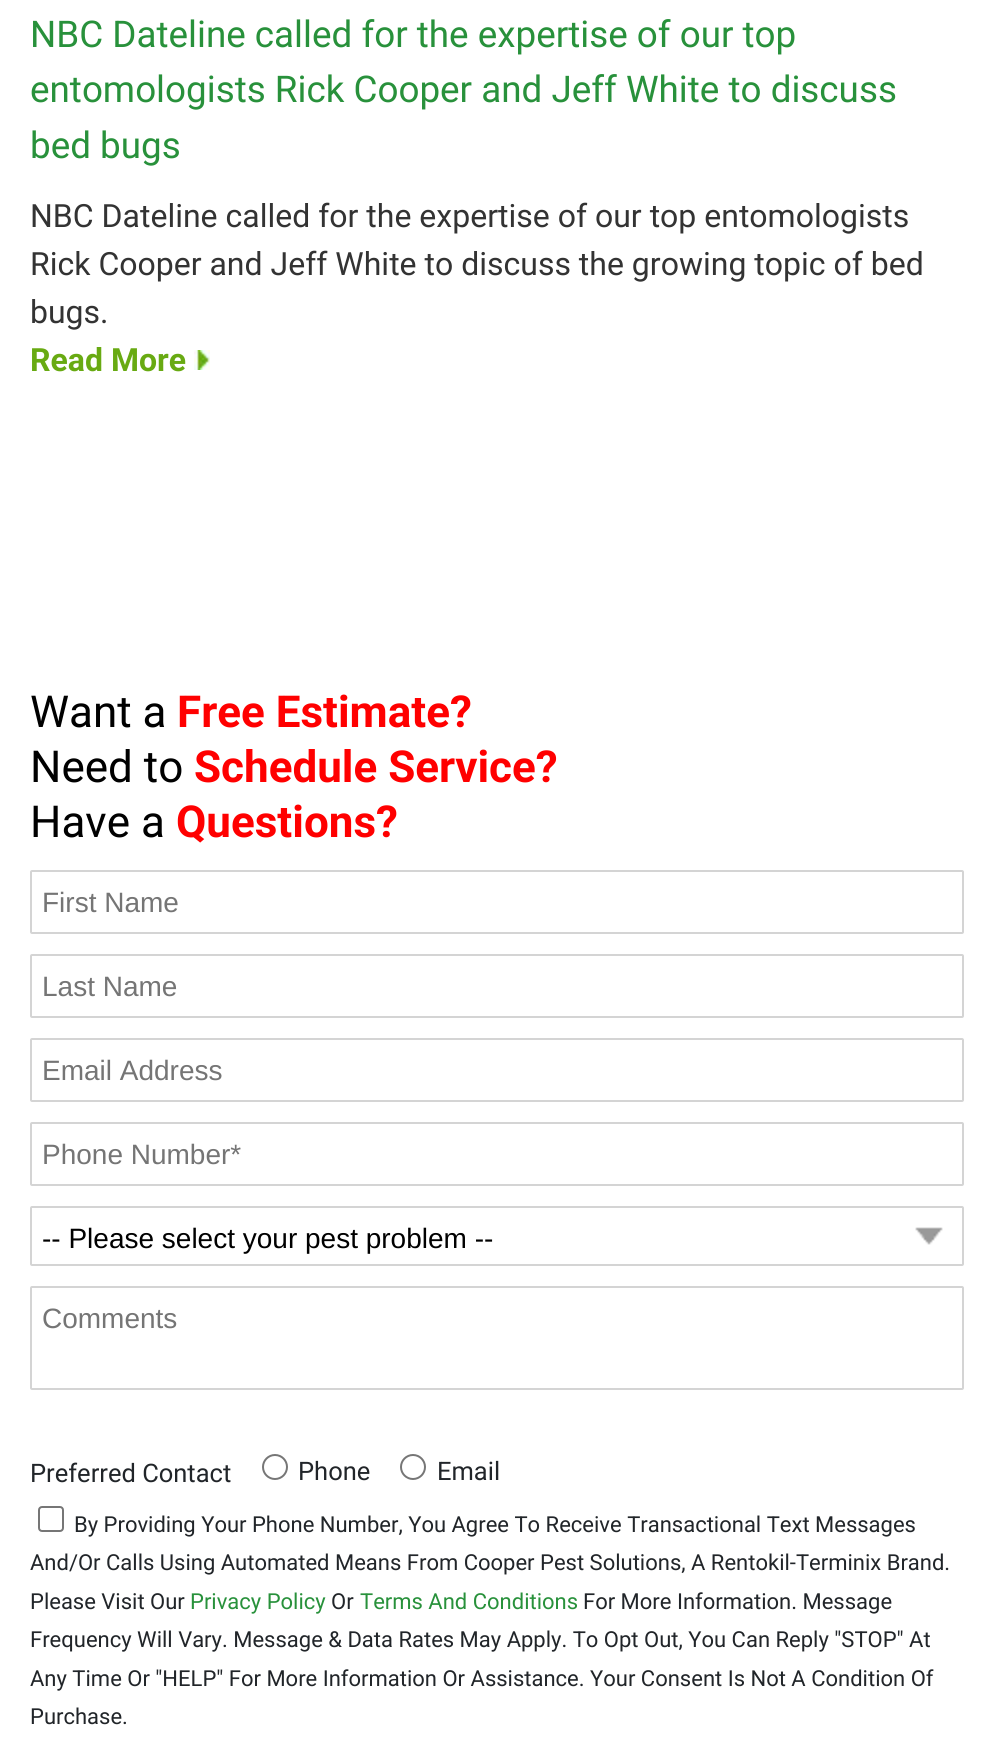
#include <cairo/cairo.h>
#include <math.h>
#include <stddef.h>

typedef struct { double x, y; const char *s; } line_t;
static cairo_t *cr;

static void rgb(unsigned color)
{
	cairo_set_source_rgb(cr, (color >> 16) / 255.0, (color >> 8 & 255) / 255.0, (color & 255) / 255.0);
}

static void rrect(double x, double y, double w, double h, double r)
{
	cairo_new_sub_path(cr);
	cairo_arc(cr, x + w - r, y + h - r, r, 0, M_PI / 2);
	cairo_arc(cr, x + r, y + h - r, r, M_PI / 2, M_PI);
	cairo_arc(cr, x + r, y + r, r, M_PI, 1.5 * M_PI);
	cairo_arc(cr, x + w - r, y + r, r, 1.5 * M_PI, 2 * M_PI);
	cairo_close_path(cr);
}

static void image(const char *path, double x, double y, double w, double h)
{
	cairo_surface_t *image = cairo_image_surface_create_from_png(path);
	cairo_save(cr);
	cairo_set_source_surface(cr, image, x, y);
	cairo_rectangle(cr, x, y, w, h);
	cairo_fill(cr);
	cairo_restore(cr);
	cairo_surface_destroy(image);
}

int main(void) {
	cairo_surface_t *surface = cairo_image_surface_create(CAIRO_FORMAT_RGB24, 993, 1752);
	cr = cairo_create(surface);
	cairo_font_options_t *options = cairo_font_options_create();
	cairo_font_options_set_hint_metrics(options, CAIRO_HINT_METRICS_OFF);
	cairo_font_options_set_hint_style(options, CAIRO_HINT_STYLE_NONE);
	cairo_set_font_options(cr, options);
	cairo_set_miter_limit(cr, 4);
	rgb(0xffffff);
	cairo_paint(cr);
	image("img/1.png", 194, 350, 16, 20);
	rrect(31, 871, 932, 62, 1);
	rgb(0xd4d4d4);
	cairo_stroke(cr);
	rrect(31, 955, 932, 62, 1);
	cairo_stroke(cr);
	rrect(31, 1039, 932, 62, 1);
	cairo_stroke(cr);
	rrect(31, 1123, 932, 62, 1);
	cairo_stroke(cr);
	image("img/2.png", 915, 1227, 28, 18);
	rrect(31, 1207, 932, 58, 1);
	cairo_stroke(cr);
	rrect(31, 1287, 932, 102, 1);
	cairo_stroke(cr);
	cairo_arc(cr, 275, 1467, 12, 0, 2 * M_PI);
	rgb(0x767676);
	cairo_stroke(cr);
	cairo_arc(cr, 413, 1467, 12, 0, 2 * M_PI);
	cairo_stroke(cr);
	rrect(39, 1507, 24, 24, 3);
	cairo_stroke(cr);
	cairo_select_font_face(cr, "Roboto", CAIRO_FONT_SLANT_NORMAL, CAIRO_FONT_WEIGHT_NORMAL);
	cairo_set_font_size(cr, 36.8);
	rgb(0x28913b);
	{
		static const line_t items[] = {
			{30, 47, "NBC Dateline called for the expertise of our top"},
			{30, 102, "entomologists Rick Cooper and Jeff White to discuss"},
			{30, 158, "bed bugs"},
		};
		for (size_t i = 0; i < sizeof items / sizeof *items; i++) {
			cairo_move_to(cr, items[i].x, items[i].y);
			cairo_show_text(cr, items[i].s);
		}
	}
	cairo_set_font_size(cr, 32);
	rgb(0x333333);
	{
		static const line_t items[] = {
			{30, 227, "NBC Dateline called for the expertise of our top entomologists"},
			{30, 275, "Rick Cooper and Jeff White to discuss the growing topic of bed"},
			{30, 323, "bugs."},
		};
		for (size_t i = 0; i < sizeof items / sizeof *items; i++) {
			cairo_move_to(cr, items[i].x, items[i].y);
			cairo_show_text(cr, items[i].s);
		}
	}
	cairo_select_font_face(cr, "Roboto", CAIRO_FONT_SLANT_NORMAL, CAIRO_FONT_WEIGHT_BOLD);
	rgb(0x68aa12);
	cairo_move_to(cr, 30, 371);
	cairo_show_text(cr, "Read More");
	cairo_select_font_face(cr, "Roboto", CAIRO_FONT_SLANT_NORMAL, CAIRO_FONT_WEIGHT_NORMAL);
	cairo_set_font_size(cr, 44);
	rgb(0x000000);
	cairo_move_to(cr, 30, 727);
	cairo_show_text(cr, "Want a");
	cairo_select_font_face(cr, "Roboto", CAIRO_FONT_SLANT_NORMAL, CAIRO_FONT_WEIGHT_BOLD);
	rgb(0xff0000);
	cairo_move_to(cr, 177, 727);
	cairo_show_text(cr, "Free Estimate?");
	cairo_select_font_face(cr, "Roboto", CAIRO_FONT_SLANT_NORMAL, CAIRO_FONT_WEIGHT_NORMAL);
	rgb(0x000000);
	cairo_move_to(cr, 30, 782);
	cairo_show_text(cr, "Need to");
	cairo_select_font_face(cr, "Roboto", CAIRO_FONT_SLANT_NORMAL, CAIRO_FONT_WEIGHT_BOLD);
	rgb(0xff0000);
	cairo_move_to(cr, 194, 782);
	cairo_show_text(cr, "Schedule Service?");
	cairo_select_font_face(cr, "Roboto", CAIRO_FONT_SLANT_NORMAL, CAIRO_FONT_WEIGHT_NORMAL);
	rgb(0x000000);
	cairo_move_to(cr, 30, 837);
	cairo_show_text(cr, "Have a");
	cairo_select_font_face(cr, "Roboto", CAIRO_FONT_SLANT_NORMAL, CAIRO_FONT_WEIGHT_BOLD);
	rgb(0xff0000);
	cairo_move_to(cr, 176, 837);
	cairo_show_text(cr, "Questions?");
	cairo_select_font_face(cr, "Liberation Sans", CAIRO_FONT_SLANT_NORMAL, CAIRO_FONT_WEIGHT_NORMAL);
	cairo_set_font_size(cr, 28);
	rgb(0x757575);
	{
		static const line_t items[] = {
			{42, 912, "First Name"},
			{42, 996, "Last Name"},
			{42, 1080, "Email Address"},
			{42, 1164, "Phone Number*"},
		};
		for (size_t i = 0; i < sizeof items / sizeof *items; i++) {
			cairo_move_to(cr, items[i].x, items[i].y);
			cairo_show_text(cr, items[i].s);
		}
	}
	rgb(0x000000);
	cairo_move_to(cr, 42, 1248);
	cairo_show_text(cr, "-- Please select your pest problem --");
	rgb(0x757575);
	cairo_move_to(cr, 42, 1328);
	cairo_show_text(cr, "Comments");
	cairo_select_font_face(cr, "Roboto", CAIRO_FONT_SLANT_NORMAL, CAIRO_FONT_WEIGHT_NORMAL);
	cairo_set_font_size(cr, 25.5);
	rgb(0x212529);
	{
		static const line_t items[] = {
			{30, 1482, "Preferred Contact"},
			{298, 1480, "Phone"},
			{437, 1480, "Email"},
		};
		for (size_t i = 0; i < sizeof items / sizeof *items; i++) {
			cairo_move_to(cr, items[i].x, items[i].y);
			cairo_show_text(cr, items[i].s);
		}
	}
	cairo_set_font_size(cr, 22);
	{
		static const line_t items[] = {
			{74, 1532, "By Providing Your Phone Number, You Agree To Receive Transactional Text Messages"},
			{30, 1570, "And/Or Calls Using Automated Means From Cooper Pest Solutions, A Rentokil-Terminix Brand."},
			{30, 1609, "Please Visit Our"},
		};
		for (size_t i = 0; i < sizeof items / sizeof *items; i++) {
			cairo_move_to(cr, items[i].x, items[i].y);
			cairo_show_text(cr, items[i].s);
		}
	}
	rgb(0x28913b);
	cairo_move_to(cr, 190, 1609);
	cairo_show_text(cr, "Privacy Policy");
	rgb(0x212529);
	cairo_move_to(cr, 331, 1609);
	cairo_show_text(cr, "Or");
	rgb(0x28913b);
	cairo_move_to(cr, 360, 1609);
	cairo_show_text(cr, "Terms And Conditions");
	rgb(0x212529);
	{
		static const line_t items[] = {
			{583, 1609, "For More Information. Message"},
			{30, 1647, "Frequency Will Vary. Message & Data Rates May Apply. To Opt Out, You Can Reply \"STOP\" At"},
			{30, 1686, "Any Time Or \"HELP\" For More Information Or Assistance. Your Consent Is Not A Condition Of"},
			{30, 1724, "Purchase."},
		};
		for (size_t i = 0; i < sizeof items / sizeof *items; i++) {
			cairo_move_to(cr, items[i].x, items[i].y);
			cairo_show_text(cr, items[i].s);
		}
	}
	cairo_surface_write_to_png(surface, "page.png");
	cairo_font_options_destroy(options);
	cairo_destroy(cr);
	cairo_surface_destroy(surface);
	return 0;
}
